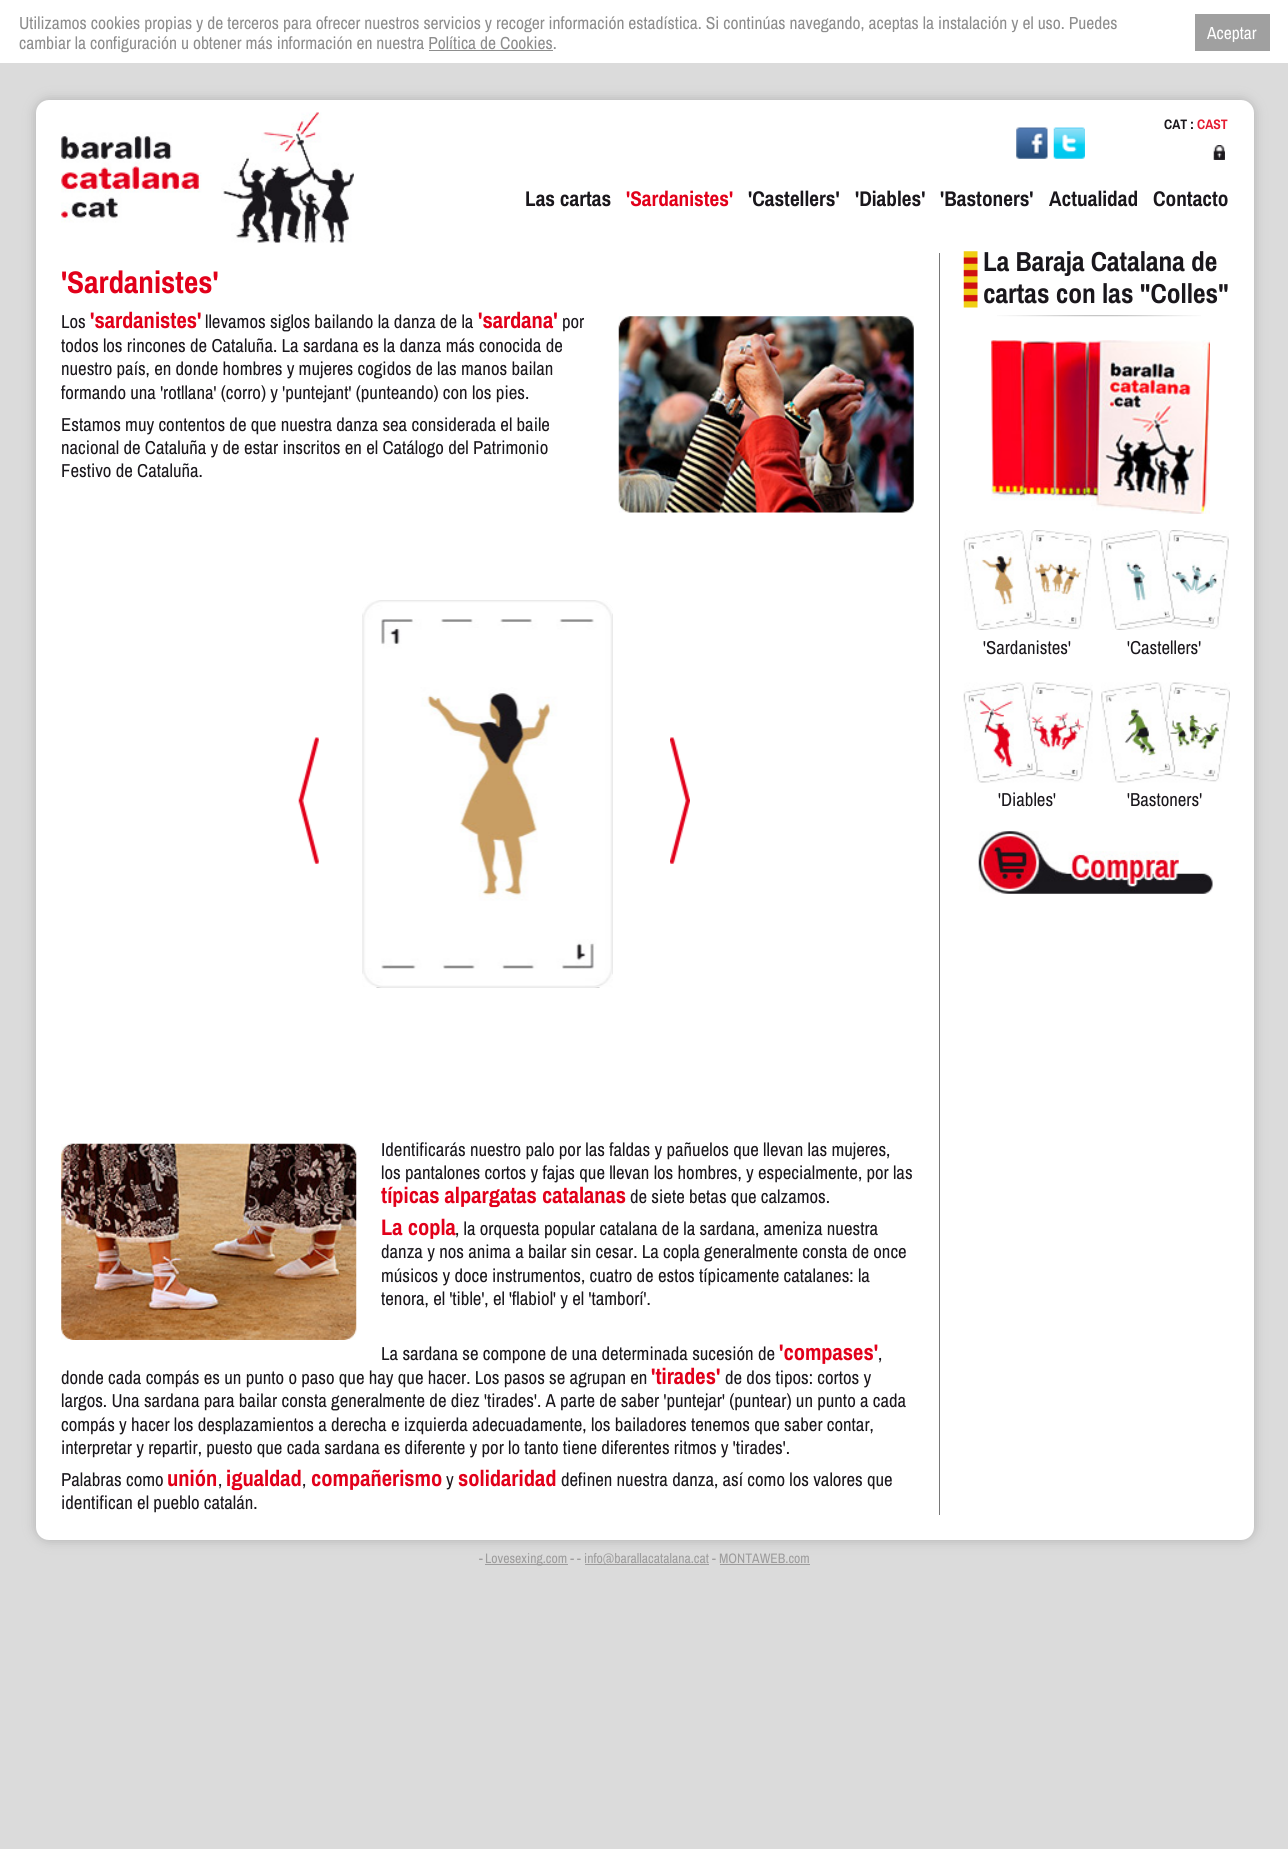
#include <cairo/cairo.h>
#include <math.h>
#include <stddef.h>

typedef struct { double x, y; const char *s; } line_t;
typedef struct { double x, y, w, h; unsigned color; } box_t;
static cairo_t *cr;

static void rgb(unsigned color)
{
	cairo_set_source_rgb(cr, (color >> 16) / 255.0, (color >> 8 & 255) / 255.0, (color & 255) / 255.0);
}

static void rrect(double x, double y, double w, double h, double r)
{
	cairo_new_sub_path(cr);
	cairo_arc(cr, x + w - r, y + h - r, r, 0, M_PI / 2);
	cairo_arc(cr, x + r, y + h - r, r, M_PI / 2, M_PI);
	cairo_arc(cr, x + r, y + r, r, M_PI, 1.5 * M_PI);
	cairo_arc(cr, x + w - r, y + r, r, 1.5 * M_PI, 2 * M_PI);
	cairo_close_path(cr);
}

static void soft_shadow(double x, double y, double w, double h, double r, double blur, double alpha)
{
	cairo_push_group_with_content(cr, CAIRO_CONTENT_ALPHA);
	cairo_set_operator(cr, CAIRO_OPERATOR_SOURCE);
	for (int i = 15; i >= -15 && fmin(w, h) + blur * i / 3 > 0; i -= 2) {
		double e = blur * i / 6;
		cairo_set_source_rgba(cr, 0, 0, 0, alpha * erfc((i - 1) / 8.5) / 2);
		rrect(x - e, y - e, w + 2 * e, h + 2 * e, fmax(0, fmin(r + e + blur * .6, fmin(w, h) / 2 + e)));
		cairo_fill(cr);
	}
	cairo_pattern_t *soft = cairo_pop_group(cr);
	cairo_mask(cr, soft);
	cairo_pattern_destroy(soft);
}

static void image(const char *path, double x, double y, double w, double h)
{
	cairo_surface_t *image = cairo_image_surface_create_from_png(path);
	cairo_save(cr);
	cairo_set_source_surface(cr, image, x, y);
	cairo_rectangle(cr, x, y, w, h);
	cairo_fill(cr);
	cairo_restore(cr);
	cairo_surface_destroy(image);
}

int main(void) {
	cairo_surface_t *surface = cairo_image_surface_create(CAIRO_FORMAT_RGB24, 1288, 1849);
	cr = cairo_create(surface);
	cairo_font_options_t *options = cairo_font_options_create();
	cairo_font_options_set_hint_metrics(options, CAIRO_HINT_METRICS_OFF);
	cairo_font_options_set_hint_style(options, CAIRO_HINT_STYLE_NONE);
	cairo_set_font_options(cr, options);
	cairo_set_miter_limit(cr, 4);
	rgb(0xdbdbdb);
	cairo_paint(cr);
	{
		static const box_t items[] = {
			{0, 0, 1288, 63, 0xffffff},
			{429, 50, 124, 1, 0x8d8d8d},
			{1195, 14, 75, 37, 0xa0a0a0},
		};
		for (size_t i = 0; i < sizeof items / sizeof *items; i++) {
			rgb(items[i].color);
			cairo_rectangle(cr, items[i].x, items[i].y, items[i].w, items[i].h);
			cairo_fill(cr);
		}
	}
	rgb(0xb1b1b1);
	soft_shadow(36, 100, 1218, 1440, 13, 6, 1);
	rgb(0xffffff);
	rrect(36, 100, 1218, 1440, 13);
	cairo_fill(cr);
	image("img/1.png", 61, 112, 293, 131);
	image("img/2.png", 1016, 127, 32, 32);
	image("img/3.png", 1053, 127, 32, 32);
	image("img/4.png", 1213, 145, 12, 15);
	rgb(0x787878);
	cairo_rectangle(cr, 939, 253, 1, 1262);
	cairo_fill(cr);
	image("img/5.png", 618, 316, 296, 197);
	rrect(363.5, 600.5, 249, 387, 18.5);
	rgb(0xebebeb);
	cairo_set_line_width(cr, 1);
	cairo_stroke(cr);
	image("img/6.png", 362, 600, 251, 387);
	rrect(363.5, 600.5, 249, 387, 18.5);
	cairo_set_source_rgba(cr, 0, 0, 0, 0.08);
	cairo_stroke(cr);
	image("img/7.png", 362, 601, 250, 386);
	rrect(363.5, 600.5, 249, 387, 18.5);
	cairo_stroke(cr);
	image("img/8.png", 363, 600, 249, 13);
	rrect(363.5, 600.5, 249, 387, 18.5);
	cairo_stroke(cr);
	image("img/9.png", 363, 600, 249, 13);
	rrect(363.5, 600.5, 249, 387, 18.5);
	cairo_stroke(cr);
	image("img/10.png", 363, 601, 249, 12);
	rrect(363.5, 600.5, 249, 387, 18.5);
	cairo_stroke(cr);
	image("img/11.png", 363, 600, 249, 13);
	rrect(363.5, 600.5, 249, 387, 18.5);
	cairo_stroke(cr);
	image("img/12.png", 363, 600, 249, 13);
	rrect(363.5, 600.5, 249, 387, 18.5);
	cairo_stroke(cr);
	image("img/13.png", 363, 600, 249, 13);
	rrect(363.5, 600.5, 249, 387, 18.5);
	cairo_stroke(cr);
	image("img/14.png", 363, 600, 250, 387);
	rrect(363.5, 600.5, 249, 387, 18.5);
	cairo_stroke(cr);
	image("img/15.png", 363, 600, 250, 387);
	rrect(363.5, 600.5, 249, 387, 18.5);
	cairo_stroke(cr);
	image("img/16.png", 363, 600, 249, 13);
	rgb(0xffffff);
	rrect(363, 600, 250, 388, 19);
	cairo_fill(cr);
	rrect(363.5, 600.5, 249, 387, 18.5);
	cairo_set_source_rgba(cr, 0, 0, 0, 0.08);
	cairo_stroke(cr);
	image("img/17.png", 363, 600, 250, 388);
	image("img/18.png", 298, 737, 21, 127);
	image("img/19.png", 670, 737, 20, 127);
	image("img/20.png", 61, 1143, 296, 197);
	image("img/21.png", 997, 315, 204, 2);
	image("img/22.png", 963, 251, 15, 57);
	image("img/23.png", 991, 340, 219, 174);
	image("img/24.png", 963, 530, 129, 100);
	image("img/25.png", 1101, 530, 128, 100);
	image("img/26.png", 963, 682, 130, 101);
	image("img/27.png", 1101, 682, 129, 101);
	image("img/28.png", 978, 831, 235, 63);
	{
		static const box_t items[] = {
			{485, 1564, 83, 1, 0x9d9c9c},
			{585, 1564, 124, 1, 0x9d9c9c},
			{720, 1564, 90, 1, 0x9d9c9c},
		};
		for (size_t i = 0; i < sizeof items / sizeof *items; i++) {
			rgb(items[i].color);
			cairo_rectangle(cr, items[i].x, items[i].y, items[i].w, items[i].h);
			cairo_fill(cr);
		}
	}
	cairo_select_font_face(cr, "Archivo Narrow", CAIRO_FONT_SLANT_NORMAL, CAIRO_FONT_WEIGHT_NORMAL);
	cairo_set_font_size(cr, 17.5);
	rgb(0x8d8d8d);
	cairo_move_to(cr, 19, 29);
	cairo_show_text(cr, "Utilizamos cookies propias y de terceros para ofrecer nuestros servicios y recoger información estadística. Si continúas navegando, aceptas la instalación y el uso. Puedes");
	cairo_move_to(cr, 19, 49);
	cairo_show_text(cr, "cambiar la configuración u obtener más información en nuestra Política de Cookies.");
	rgb(0xffffff);
	cairo_move_to(cr, 1207, 39);
	cairo_show_text(cr, "Aceptar");
	cairo_select_font_face(cr, "Archivo Narrow", CAIRO_FONT_SLANT_NORMAL, CAIRO_FONT_WEIGHT_BOLD);
	cairo_set_font_size(cr, 13.75);
	rgb(0x1a171c);
	cairo_move_to(cr, 1164, 129);
	cairo_show_text(cr, "CAT :");
	rgb(0xe51c33);
	cairo_move_to(cr, 1197, 129);
	cairo_show_text(cr, "CAST");
	cairo_set_font_size(cr, 21.25);
	rgb(0x1a171c);
	cairo_move_to(cr, 525, 206);
	cairo_show_text(cr, "Las cartas");
	rgb(0xe2001a);
	cairo_move_to(cr, 626, 206);
	cairo_show_text(cr, "'Sardanistes'");
	rgb(0x1a171c);
	{
		static const line_t items[] = {
			{748, 206, "'Castellers'"},
			{855, 206, "'Diables'"},
			{940, 206, "'Bastoners'"},
			{1049, 206, "Actualidad"},
			{1153, 206, "Contacto"},
		};
		for (size_t i = 0; i < sizeof items / sizeof *items; i++) {
			cairo_move_to(cr, items[i].x, items[i].y);
			cairo_show_text(cr, items[i].s);
		}
	}
	cairo_set_font_size(cr, 31.25);
	rgb(0xe2001a);
	cairo_move_to(cr, 61, 293);
	cairo_show_text(cr, "'Sardanistes'");
	cairo_select_font_face(cr, "Archivo Narrow", CAIRO_FONT_SLANT_NORMAL, CAIRO_FONT_WEIGHT_NORMAL);
	cairo_set_font_size(cr, 18.75);
	rgb(0x1a171c);
	cairo_move_to(cr, 61, 328);
	cairo_show_text(cr, "Los");
	cairo_select_font_face(cr, "Archivo Narrow", CAIRO_FONT_SLANT_NORMAL, CAIRO_FONT_WEIGHT_BOLD);
	cairo_set_font_size(cr, 22.5);
	rgb(0xe2001a);
	cairo_move_to(cr, 90, 328);
	cairo_show_text(cr, "'sardanistes'");
	cairo_select_font_face(cr, "Archivo Narrow", CAIRO_FONT_SLANT_NORMAL, CAIRO_FONT_WEIGHT_NORMAL);
	cairo_set_font_size(cr, 18.75);
	rgb(0x1a171c);
	cairo_move_to(cr, 205, 328);
	cairo_show_text(cr, "llevamos siglos bailando la danza de la");
	cairo_select_font_face(cr, "Archivo Narrow", CAIRO_FONT_SLANT_NORMAL, CAIRO_FONT_WEIGHT_BOLD);
	cairo_set_font_size(cr, 22.5);
	rgb(0xe2001a);
	cairo_move_to(cr, 478, 328);
	cairo_show_text(cr, "'sardana'");
	cairo_select_font_face(cr, "Archivo Narrow", CAIRO_FONT_SLANT_NORMAL, CAIRO_FONT_WEIGHT_NORMAL);
	cairo_set_font_size(cr, 18.75);
	rgb(0x1a171c);
	{
		static const line_t items[] = {
			{562, 328, "por"},
			{61, 352, "todos los rincones de Cataluña. La sardana es la danza más conocida de"},
			{61, 375, "nuestro país, en donde hombres y mujeres cogidos de las manos bailan"},
			{61, 399, "formando una 'rotllana' (corro) y 'puntejant' (punteando) con los pies."},
			{61, 431, "Estamos muy contentos de que nuestra danza sea considerada el baile"},
			{61, 454, "nacional de Cataluña y de estar inscritos en el Catálogo del Patrimonio"},
			{61, 477, "Festivo de Cataluña."},
			{381, 1156, "Identificarás nuestro palo por las faldas y pañuelos que llevan las mujeres,"},
			{381, 1179, "los pantalones cortos y fajas que llevan los hombres, y especialmente, por las"},
		};
		for (size_t i = 0; i < sizeof items / sizeof *items; i++) {
			cairo_move_to(cr, items[i].x, items[i].y);
			cairo_show_text(cr, items[i].s);
		}
	}
	cairo_select_font_face(cr, "Archivo Narrow", CAIRO_FONT_SLANT_NORMAL, CAIRO_FONT_WEIGHT_BOLD);
	cairo_set_font_size(cr, 22.5);
	rgb(0xe2001a);
	cairo_move_to(cr, 381, 1203);
	cairo_show_text(cr, "típicas alpargatas catalanas");
	cairo_select_font_face(cr, "Archivo Narrow", CAIRO_FONT_SLANT_NORMAL, CAIRO_FONT_WEIGHT_NORMAL);
	cairo_set_font_size(cr, 18.75);
	rgb(0x1a171c);
	cairo_move_to(cr, 630, 1203);
	cairo_show_text(cr, "de siete betas que calzamos.");
	cairo_select_font_face(cr, "Archivo Narrow", CAIRO_FONT_SLANT_NORMAL, CAIRO_FONT_WEIGHT_BOLD);
	cairo_set_font_size(cr, 22.5);
	rgb(0xe2001a);
	cairo_move_to(cr, 381, 1235);
	cairo_show_text(cr, "La copla");
	cairo_select_font_face(cr, "Archivo Narrow", CAIRO_FONT_SLANT_NORMAL, CAIRO_FONT_WEIGHT_NORMAL);
	cairo_set_font_size(cr, 18.75);
	rgb(0x1a171c);
	{
		static const line_t items[] = {
			{455, 1235, ", la orquesta popular catalana de la sardana, ameniza nuestra"},
			{381, 1258, "danza y nos anima a bailar sin cesar. La copla generalmente consta de once"},
			{381, 1282, "músicos y doce instrumentos, cuatro de estos típicamente catalanes: la"},
			{381, 1305, "tenora, el 'tible', el 'flabiol' y el 'tamborí'."},
			{381, 1360, "La sardana se compone de una determinada sucesión de"},
		};
		for (size_t i = 0; i < sizeof items / sizeof *items; i++) {
			cairo_move_to(cr, items[i].x, items[i].y);
			cairo_show_text(cr, items[i].s);
		}
	}
	cairo_select_font_face(cr, "Archivo Narrow", CAIRO_FONT_SLANT_NORMAL, CAIRO_FONT_WEIGHT_BOLD);
	cairo_set_font_size(cr, 22.5);
	rgb(0xe2001a);
	cairo_move_to(cr, 779, 1360);
	cairo_show_text(cr, "'compases'");
	cairo_select_font_face(cr, "Archivo Narrow", CAIRO_FONT_SLANT_NORMAL, CAIRO_FONT_WEIGHT_NORMAL);
	cairo_set_font_size(cr, 18.75);
	rgb(0x1a171c);
	cairo_move_to(cr, 878, 1360);
	cairo_show_text(cr, ",");
	cairo_move_to(cr, 61, 1384);
	cairo_show_text(cr, "donde cada compás es un punto o paso que hay que hacer. Los pasos se agrupan en");
	cairo_select_font_face(cr, "Archivo Narrow", CAIRO_FONT_SLANT_NORMAL, CAIRO_FONT_WEIGHT_BOLD);
	cairo_set_font_size(cr, 22.5);
	rgb(0xe2001a);
	cairo_move_to(cr, 651, 1384);
	cairo_show_text(cr, "'tirades'");
	cairo_select_font_face(cr, "Archivo Narrow", CAIRO_FONT_SLANT_NORMAL, CAIRO_FONT_WEIGHT_NORMAL);
	cairo_set_font_size(cr, 18.75);
	rgb(0x1a171c);
	{
		static const line_t items[] = {
			{725, 1384, "de dos tipos: cortos y"},
			{61, 1407, "largos. Una sardana para bailar consta generalmente de diez 'tirades'. A parte de saber 'puntejar' (puntear) un punto a cada"},
			{61, 1431, "compás y hacer los desplazamientos a derecha e izquierda adecuadamente, los bailadores tenemos que saber contar,"},
			{61, 1454, "interpretar y repartir, puesto que cada sardana es diferente y por lo tanto tiene diferentes ritmos y 'tirades'."},
			{61, 1486, "Palabras como"},
		};
		for (size_t i = 0; i < sizeof items / sizeof *items; i++) {
			cairo_move_to(cr, items[i].x, items[i].y);
			cairo_show_text(cr, items[i].s);
		}
	}
	cairo_select_font_face(cr, "Archivo Narrow", CAIRO_FONT_SLANT_NORMAL, CAIRO_FONT_WEIGHT_BOLD);
	cairo_set_font_size(cr, 22.5);
	rgb(0xe2001a);
	cairo_move_to(cr, 167, 1486);
	cairo_show_text(cr, "unión");
	cairo_select_font_face(cr, "Archivo Narrow", CAIRO_FONT_SLANT_NORMAL, CAIRO_FONT_WEIGHT_NORMAL);
	cairo_set_font_size(cr, 18.75);
	rgb(0x1a171c);
	cairo_move_to(cr, 218, 1486);
	cairo_show_text(cr, ",");
	cairo_select_font_face(cr, "Archivo Narrow", CAIRO_FONT_SLANT_NORMAL, CAIRO_FONT_WEIGHT_BOLD);
	cairo_set_font_size(cr, 22.5);
	rgb(0xe2001a);
	cairo_move_to(cr, 226, 1486);
	cairo_show_text(cr, "igualdad");
	cairo_select_font_face(cr, "Archivo Narrow", CAIRO_FONT_SLANT_NORMAL, CAIRO_FONT_WEIGHT_NORMAL);
	cairo_set_font_size(cr, 18.75);
	rgb(0x1a171c);
	cairo_move_to(cr, 302, 1486);
	cairo_show_text(cr, ",");
	cairo_select_font_face(cr, "Archivo Narrow", CAIRO_FONT_SLANT_NORMAL, CAIRO_FONT_WEIGHT_BOLD);
	cairo_set_font_size(cr, 22.5);
	rgb(0xe2001a);
	cairo_move_to(cr, 311, 1486);
	cairo_show_text(cr, "compañerismo");
	cairo_select_font_face(cr, "Archivo Narrow", CAIRO_FONT_SLANT_NORMAL, CAIRO_FONT_WEIGHT_NORMAL);
	cairo_set_font_size(cr, 18.75);
	rgb(0x1a171c);
	cairo_move_to(cr, 446, 1486);
	cairo_show_text(cr, "y");
	cairo_select_font_face(cr, "Archivo Narrow", CAIRO_FONT_SLANT_NORMAL, CAIRO_FONT_WEIGHT_BOLD);
	cairo_set_font_size(cr, 22.5);
	rgb(0xe2001a);
	cairo_move_to(cr, 458, 1486);
	cairo_show_text(cr, "solidaridad");
	cairo_select_font_face(cr, "Archivo Narrow", CAIRO_FONT_SLANT_NORMAL, CAIRO_FONT_WEIGHT_NORMAL);
	cairo_set_font_size(cr, 18.75);
	rgb(0x1a171c);
	cairo_move_to(cr, 561, 1486);
	cairo_show_text(cr, "definen nuestra danza, así como los valores que");
	cairo_move_to(cr, 61, 1509);
	cairo_show_text(cr, "identifican el pueblo catalán.");
	cairo_select_font_face(cr, "Archivo Narrow", CAIRO_FONT_SLANT_NORMAL, CAIRO_FONT_WEIGHT_BOLD);
	cairo_set_font_size(cr, 27.5);
	cairo_move_to(cr, 983, 271);
	cairo_show_text(cr, "La Baraja Catalana de");
	cairo_move_to(cr, 983, 303);
	cairo_show_text(cr, "cartas con las \"Colles\"");
	cairo_select_font_face(cr, "Archivo Narrow", CAIRO_FONT_SLANT_NORMAL, CAIRO_FONT_WEIGHT_NORMAL);
	cairo_set_font_size(cr, 18.75);
	{
		static const line_t items[] = {
			{983, 654, "'Sardanistes'"},
			{1127, 654, "'Castellers'"},
			{998, 806, "'Diables'"},
			{1127, 806, "'Bastoners'"},
		};
		for (size_t i = 0; i < sizeof items / sizeof *items; i++) {
			cairo_move_to(cr, items[i].x, items[i].y);
			cairo_show_text(cr, items[i].s);
		}
	}
	cairo_set_font_size(cr, 13.75);
	rgb(0x9d9c9c);
	{
		static const line_t items[] = {
			{479, 1563, "-"},
			{485, 1563, "Lovesexing.com - -"},
			{584, 1563, "info@barallacatalana.cat - MONTAWEB.com"},
		};
		for (size_t i = 0; i < sizeof items / sizeof *items; i++) {
			cairo_move_to(cr, items[i].x, items[i].y);
			cairo_show_text(cr, items[i].s);
		}
	}
	cairo_surface_write_to_png(surface, "page.png");
	cairo_font_options_destroy(options);
	cairo_destroy(cr);
	cairo_surface_destroy(surface);
	return 0;
}
